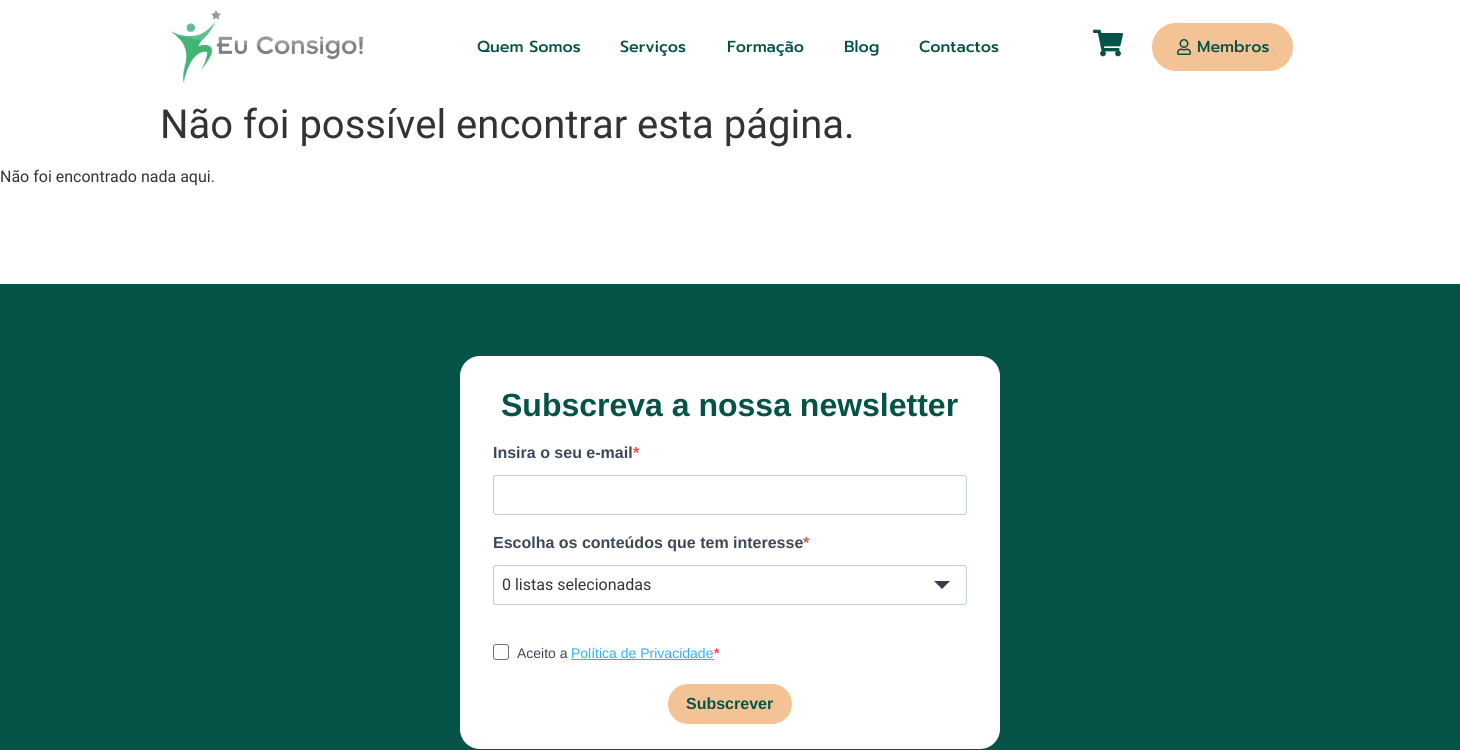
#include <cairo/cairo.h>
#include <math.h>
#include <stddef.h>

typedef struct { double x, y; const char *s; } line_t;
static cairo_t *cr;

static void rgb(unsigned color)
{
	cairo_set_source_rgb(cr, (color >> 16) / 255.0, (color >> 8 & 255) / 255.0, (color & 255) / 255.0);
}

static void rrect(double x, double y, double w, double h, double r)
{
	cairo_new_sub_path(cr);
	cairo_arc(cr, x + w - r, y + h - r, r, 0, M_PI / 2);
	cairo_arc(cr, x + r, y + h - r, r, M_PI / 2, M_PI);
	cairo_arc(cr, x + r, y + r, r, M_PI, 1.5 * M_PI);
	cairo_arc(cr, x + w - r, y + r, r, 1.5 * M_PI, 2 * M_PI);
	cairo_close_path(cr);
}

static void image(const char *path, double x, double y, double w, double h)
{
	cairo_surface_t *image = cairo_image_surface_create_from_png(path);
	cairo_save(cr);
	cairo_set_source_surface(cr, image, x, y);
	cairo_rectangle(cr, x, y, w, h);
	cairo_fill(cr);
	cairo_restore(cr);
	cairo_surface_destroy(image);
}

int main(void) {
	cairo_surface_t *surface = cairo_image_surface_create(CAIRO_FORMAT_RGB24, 1460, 750);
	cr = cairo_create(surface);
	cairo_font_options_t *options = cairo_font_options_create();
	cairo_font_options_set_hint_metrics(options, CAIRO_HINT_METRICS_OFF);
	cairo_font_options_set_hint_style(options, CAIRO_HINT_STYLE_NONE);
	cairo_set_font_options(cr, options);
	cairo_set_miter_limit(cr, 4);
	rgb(0xffffff);
	cairo_paint(cr);
	image("img/1.png", 170, 10, 193, 73);
	image("img/2.png", 1093, 29, 30, 28);
	rgb(0xf3c395);
	rrect(1152, 23, 141, 48, 24);
	cairo_fill(cr);
	image("img/3.png", 1177, 39, 14, 16);
	rgb(0x045346);
	cairo_rectangle(cr, 0, 284, 1460, 466);
	cairo_fill(cr);
	rgb(0xffffff);
	rrect(460, 356, 540, 393, 20);
	cairo_fill(cr);
	rrect(493.5, 475.5, 473, 39, 2.5);
	rgb(0xc0ccda);
	cairo_set_line_width(cr, 1);
	cairo_stroke(cr);
	rrect(493.5, 565.5, 473, 39, 2.5);
	cairo_stroke(cr);
	rgb(0x343f4e);
	cairo_new_path(cr);
	cairo_move_to(cr, 934, 581);
	cairo_line_to(cr, 950, 581);
	cairo_line_to(cr, 942, 589);
	cairo_close_path(cr);
	cairo_fill(cr);
	rrect(493.5, 644.5, 15, 15, 2.5);
	rgb(0x687484);
	cairo_stroke(cr);
	rgb(0x2bb2fc);
	cairo_rectangle(cr, 571, 659, 143, 1);
	cairo_fill(cr);
	rgb(0xf3c395);
	rrect(668, 684, 124, 40, 20);
	cairo_fill(cr);
	cairo_select_font_face(cr, "Prompt Medium", CAIRO_FONT_SLANT_NORMAL, CAIRO_FONT_WEIGHT_NORMAL);
	cairo_set_font_size(cr, 16);
	rgb(0x045346);
	{
		static const line_t items[] = {
			{477, 52, "Quem Somos"},
			{620, 52, "Serviços"},
			{727, 52, "Formação"},
			{844, 52, "Blog"},
			{919, 52, "Contactos"},
			{1197, 52, "Membros"},
		};
		for (size_t i = 0; i < sizeof items / sizeof *items; i++) {
			cairo_move_to(cr, items[i].x, items[i].y);
			cairo_show_text(cr, items[i].s);
		}
	}
	cairo_select_font_face(cr, "Roboto", CAIRO_FONT_SLANT_NORMAL, CAIRO_FONT_WEIGHT_NORMAL);
	cairo_set_font_size(cr, 40);
	rgb(0x333333);
	cairo_move_to(cr, 160, 138);
	cairo_show_text(cr, "Não foi possível encontrar esta página.");
	cairo_set_font_size(cr, 16);
	cairo_move_to(cr, 0, 182);
	cairo_show_text(cr, "Não foi encontrado nada aqui.");
	cairo_select_font_face(cr, "Liberation Sans", CAIRO_FONT_SLANT_NORMAL, CAIRO_FONT_WEIGHT_BOLD);
	cairo_set_font_size(cr, 32);
	rgb(0x045346);
	cairo_move_to(cr, 501, 416);
	cairo_show_text(cr, "Subscreva a nossa newsletter");
	cairo_set_font_size(cr, 16);
	rgb(0x3c4858);
	cairo_move_to(cr, 493, 458);
	cairo_show_text(cr, "Insira o seu e-mail");
	rgb(0xff4949);
	cairo_move_to(cr, 633, 458);
	cairo_show_text(cr, "*");
	rgb(0x3c4858);
	cairo_move_to(cr, 493, 548);
	cairo_show_text(cr, "Escolha os conteúdos que tem interesse");
	rgb(0xff4949);
	cairo_move_to(cr, 803, 548);
	cairo_show_text(cr, "*");
	cairo_select_font_face(cr, "Roboto", CAIRO_FONT_SLANT_NORMAL, CAIRO_FONT_WEIGHT_NORMAL);
	rgb(0x333333);
	cairo_move_to(cr, 502, 590);
	cairo_show_text(cr, "0 listas selecionadas");
	cairo_select_font_face(cr, "Liberation Sans", CAIRO_FONT_SLANT_NORMAL, CAIRO_FONT_WEIGHT_NORMAL);
	cairo_set_font_size(cr, 14);
	rgb(0x3c4858);
	cairo_move_to(cr, 517, 658);
	cairo_show_text(cr, "Aceito a");
	rgb(0x2bb2fc);
	cairo_move_to(cr, 571, 658);
	cairo_show_text(cr, "Política de Privacidade");
	cairo_select_font_face(cr, "Liberation Sans", CAIRO_FONT_SLANT_NORMAL, CAIRO_FONT_WEIGHT_BOLD);
	rgb(0xff4949);
	cairo_move_to(cr, 714, 658);
	cairo_show_text(cr, "*");
	cairo_set_font_size(cr, 16);
	rgb(0x045346);
	cairo_move_to(cr, 686, 709);
	cairo_show_text(cr, "Subscrever");
	cairo_surface_write_to_png(surface, "page.png");
	cairo_font_options_destroy(options);
	cairo_destroy(cr);
	cairo_surface_destroy(surface);
	return 0;
}
